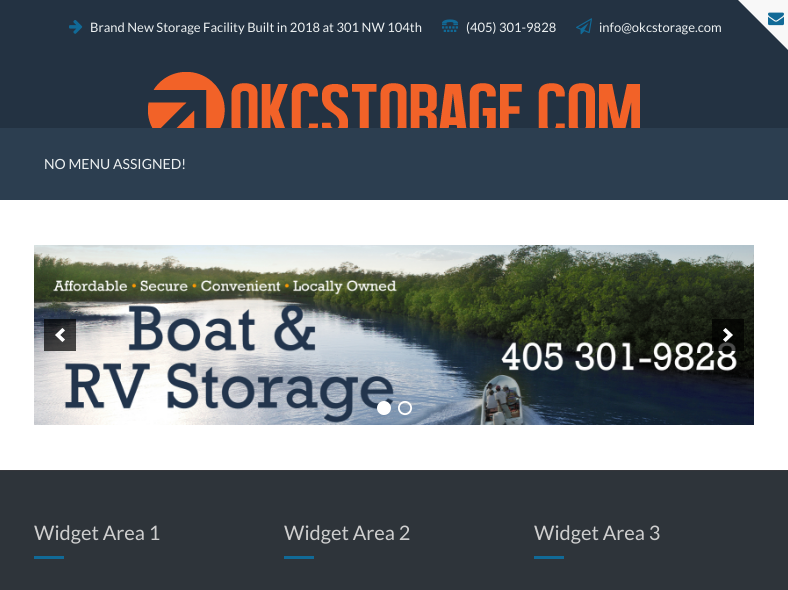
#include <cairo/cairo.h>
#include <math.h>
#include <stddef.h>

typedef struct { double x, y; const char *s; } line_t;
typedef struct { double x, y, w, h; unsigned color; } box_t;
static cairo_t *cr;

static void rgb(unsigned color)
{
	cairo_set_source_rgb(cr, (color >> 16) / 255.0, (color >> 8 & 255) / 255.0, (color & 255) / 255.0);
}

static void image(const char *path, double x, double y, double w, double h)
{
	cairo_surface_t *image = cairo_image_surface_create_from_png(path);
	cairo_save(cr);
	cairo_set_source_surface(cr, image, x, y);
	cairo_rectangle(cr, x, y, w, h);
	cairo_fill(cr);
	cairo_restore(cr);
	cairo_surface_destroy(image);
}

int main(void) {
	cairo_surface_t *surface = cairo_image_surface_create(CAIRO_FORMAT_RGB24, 788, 590);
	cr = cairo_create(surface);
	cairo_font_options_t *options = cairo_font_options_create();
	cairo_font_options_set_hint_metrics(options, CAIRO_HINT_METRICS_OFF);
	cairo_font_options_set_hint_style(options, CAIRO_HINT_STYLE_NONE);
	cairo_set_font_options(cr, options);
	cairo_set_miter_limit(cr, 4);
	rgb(0xffffff);
	cairo_paint(cr);
	rgb(0x233242);
	cairo_rectangle(cr, 0, 0, 787, 49);
	cairo_fill(cr);
	image("img/1.png", 69, 20, 14, 14);
	image("img/2.png", 442, 19, 16, 13);
	image("img/3.png", 576, 18, 16, 17);
	cairo_rectangle(cr, 0, 49, 788, 79);
	cairo_fill(cr);
	rgb(0xf8f8f8);
	cairo_new_path(cr);
	cairo_move_to(cr, 788, 0);
	cairo_line_to(cr, 788, 50);
	cairo_line_to(cr, 738, 0);
	cairo_close_path(cr);
	cairo_fill(cr);
	image("img/4.png", 768, 12, 16, 14);
	image("img/5.png", 148, 72, 492, 56);
	rgb(0x2c3e50);
	cairo_rectangle(cr, 0, 128, 788, 72);
	cairo_fill(cr);
	image("img/6.png", 34, 245, 720, 180);
	cairo_set_source_rgba(cr, 0, 0, 0, 0.7);
	cairo_rectangle(cr, 44, 319, 32, 32);
	cairo_fill(cr);
	image("img/7.png", 55, 328, 10, 14);
	cairo_rectangle(cr, 712, 319, 32, 32);
	cairo_fill(cr);
	image("img/8.png", 723, 328, 10, 14);
	image("img/9.png", 377, 401, 14, 14);
	image("img/10.png", 398, 401, 14, 14);
	{
		static const box_t items[] = {
			{0, 471, 788, 119, 0x2e343a},
			{0, 470, 788, 1, 0x36373c},
			{34, 556, 30, 3, 0x116a97},
			{284, 556, 30, 3, 0x116a97},
			{534, 556, 30, 3, 0x116a97},
		};
		for (size_t i = 0; i < sizeof items / sizeof *items; i++) {
			rgb(items[i].color);
			cairo_rectangle(cr, items[i].x, items[i].y, items[i].w, items[i].h);
			cairo_fill(cr);
		}
	}
	cairo_select_font_face(cr, "Lato", CAIRO_FONT_SLANT_NORMAL, CAIRO_FONT_WEIGHT_NORMAL);
	cairo_set_font_size(cr, 13);
	rgb(0xecf0f1);
	{
		static const line_t items[] = {
			{90, 32, "Brand New Storage Facility Built in 2018 at 301 NW 104th"},
			{466, 32, "(405) 301-9828"},
			{599, 32, "info@okcstorage.com"},
		};
		for (size_t i = 0; i < sizeof items / sizeof *items; i++) {
			cairo_move_to(cr, items[i].x, items[i].y);
			cairo_show_text(cr, items[i].s);
		}
	}
	cairo_set_font_size(cr, 14);
	cairo_move_to(cr, 44, 169);
	cairo_show_text(cr, "NO MENU ASSIGNED!");
	cairo_set_font_size(cr, 20);
	rgb(0xcecece);
	{
		static const line_t items[] = {
			{34, 540, "Widget Area 1"},
			{284, 540, "Widget Area 2"},
			{534, 540, "Widget Area 3"},
		};
		for (size_t i = 0; i < sizeof items / sizeof *items; i++) {
			cairo_move_to(cr, items[i].x, items[i].y);
			cairo_show_text(cr, items[i].s);
		}
	}
	cairo_surface_write_to_png(surface, "page.png");
	cairo_font_options_destroy(options);
	cairo_destroy(cr);
	cairo_surface_destroy(surface);
	return 0;
}
